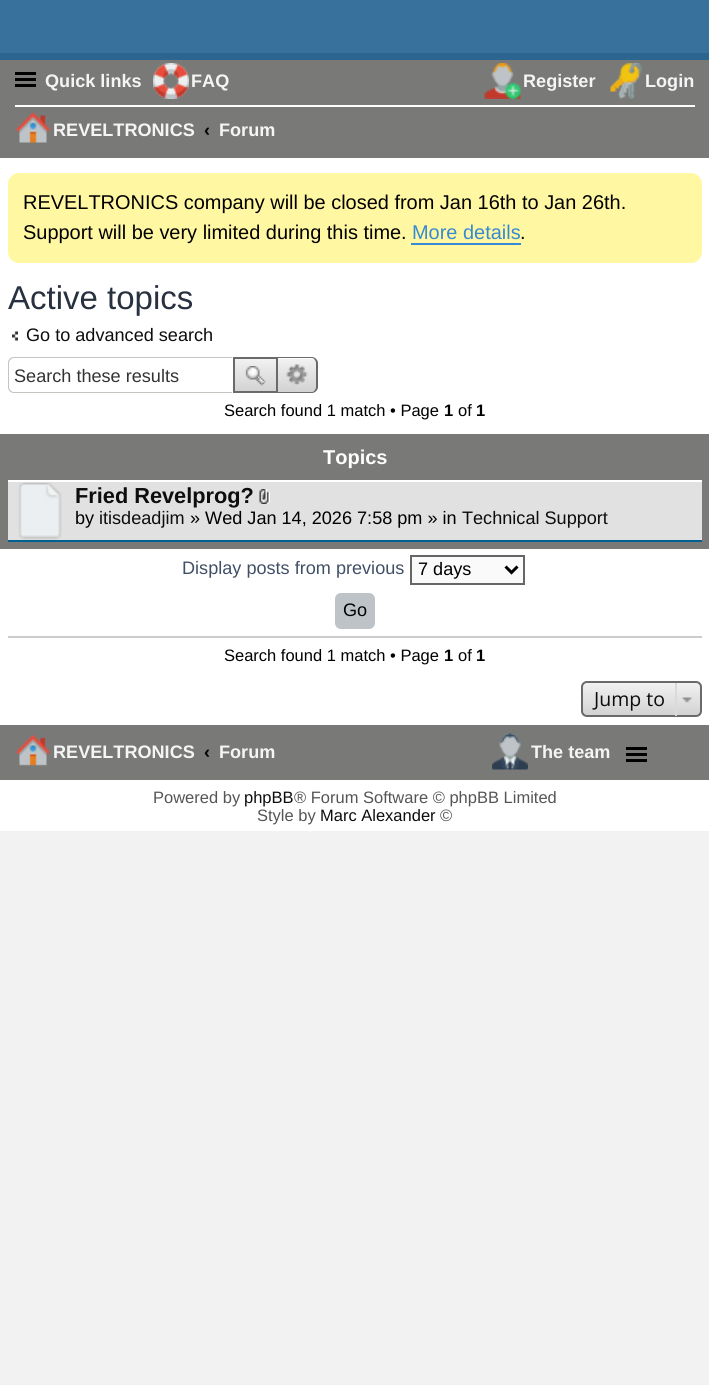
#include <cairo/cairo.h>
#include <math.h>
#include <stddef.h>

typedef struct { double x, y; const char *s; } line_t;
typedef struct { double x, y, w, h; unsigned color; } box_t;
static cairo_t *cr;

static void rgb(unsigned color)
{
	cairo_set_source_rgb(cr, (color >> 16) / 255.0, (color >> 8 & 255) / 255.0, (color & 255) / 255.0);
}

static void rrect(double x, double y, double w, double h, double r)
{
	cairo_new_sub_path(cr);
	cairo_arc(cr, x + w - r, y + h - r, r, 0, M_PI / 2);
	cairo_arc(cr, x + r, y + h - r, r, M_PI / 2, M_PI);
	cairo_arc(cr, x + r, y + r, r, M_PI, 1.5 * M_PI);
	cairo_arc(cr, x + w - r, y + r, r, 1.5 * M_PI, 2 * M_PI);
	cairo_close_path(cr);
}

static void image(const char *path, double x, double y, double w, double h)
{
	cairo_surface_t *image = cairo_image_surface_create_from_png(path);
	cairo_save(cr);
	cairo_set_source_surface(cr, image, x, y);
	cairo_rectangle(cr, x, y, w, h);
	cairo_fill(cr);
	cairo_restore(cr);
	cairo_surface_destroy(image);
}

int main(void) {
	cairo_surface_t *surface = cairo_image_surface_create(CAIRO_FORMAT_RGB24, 709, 1385);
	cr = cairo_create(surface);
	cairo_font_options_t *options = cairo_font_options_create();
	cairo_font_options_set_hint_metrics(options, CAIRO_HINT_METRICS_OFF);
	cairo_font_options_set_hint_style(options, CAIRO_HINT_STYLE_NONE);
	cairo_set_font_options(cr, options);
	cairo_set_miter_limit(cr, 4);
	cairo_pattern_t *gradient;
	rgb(0xf2f2f2);
	cairo_paint(cr);
	{
		static const box_t items[] = {
			{0, 0, 709, 53, 0x38719c},
			{0, 158, 709, 673, 0xffffff},
			{0, 60, 709, 98, 0x797a78},
			{0, 53, 709, 7, 0x2c658f},
			{15, 72, 21, 3, 0x000000},
			{15, 78, 21, 3, 0x000000},
			{15, 84, 21, 3, 0x000000},
		};
		for (size_t i = 0; i < sizeof items / sizeof *items; i++) {
			rgb(items[i].color);
			cairo_rectangle(cr, items[i].x, items[i].y, items[i].w, items[i].h);
			cairo_fill(cr);
		}
	}
	image("img/1.png", 153, 63, 36, 36);
	image("img/2.png", 484, 63, 37, 36);
	image("img/3.png", 610, 63, 32, 36);
	rgb(0xffffff);
	cairo_rectangle(cr, 15, 105, 680, 2);
	cairo_fill(cr);
	image("img/4.png", 15, 112, 36, 31);
	rgb(0xfff7a2);
	rrect(8, 173, 694, 90, 11);
	cairo_fill(cr);
	rgb(0x368ad2);
	cairo_rectangle(cr, 411, 243, 110, 2);
	cairo_fill(cr);
	image("img/5.png", 12, 331, 6, 10);
	rgb(0xc7c3bf);
	cairo_set_fill_rule(cr, CAIRO_FILL_RULE_EVEN_ODD);
	cairo_new_path(cr);
	cairo_move_to(cr, 14, 357);
	cairo_line_to(cr, 232, 357);
	cairo_line_to(cr, 232, 393);
	cairo_line_to(cr, 14, 393);
	cairo_curve_to(cr, 10, 393, 8, 390, 8, 387);
	cairo_line_to(cr, 8, 363);
	cairo_curve_to(cr, 8, 360, 10, 357, 14, 357);
	cairo_close_path(cr);
	cairo_move_to(cr, 14, 358);
	cairo_line_to(cr, 232, 358);
	cairo_line_to(cr, 232, 392);
	cairo_line_to(cr, 14, 392);
	cairo_curve_to(cr, 11, 392, 9, 389, 9, 387);
	cairo_line_to(cr, 9, 363);
	cairo_curve_to(cr, 9, 361, 11, 358, 14, 358);
	cairo_close_path(cr);
	cairo_fill(cr);
	gradient = cairo_pattern_create_linear(255, 359, 255, 392);
	cairo_pattern_add_color_stop_rgba(gradient, 0, 0.945, 0.945, 0.945, 1);
	cairo_pattern_add_color_stop_rgba(gradient, 1, 0.824, 0.824, 0.824, 1);
	cairo_set_source(cr, gradient);
	cairo_pattern_destroy(gradient);
	cairo_rectangle(cr, 235, 359, 41, 32);
	cairo_fill(cr);
	cairo_rectangle(cr, 234, 358, 43, 34);
	rgb(0x6a6a6a);
	cairo_stroke(cr);
	image("img/6.png", 245, 366, 21, 20);
	gradient = cairo_pattern_create_linear(297, 359, 297, 392);
	cairo_pattern_add_color_stop_rgba(gradient, 0, 0.945, 0.945, 0.945, 1);
	cairo_pattern_add_color_stop_rgba(gradient, 1, 0.824, 0.824, 0.824, 1);
	cairo_set_source(cr, gradient);
	cairo_pattern_destroy(gradient);
	cairo_new_path(cr);
	cairo_move_to(cr, 278, 359);
	cairo_line_to(cr, 312, 359);
	cairo_curve_to(cr, 315, 359, 317, 361, 317, 364);
	cairo_line_to(cr, 317, 387);
	cairo_curve_to(cr, 317, 390, 315, 392, 312, 392);
	cairo_line_to(cr, 278, 392);
	cairo_close_path(cr);
	cairo_fill(cr);
	rgb(0x6a6a6a);
	cairo_new_path(cr);
	cairo_move_to(cr, 278, 357);
	cairo_line_to(cr, 312, 357);
	cairo_curve_to(cr, 315, 357, 318, 360, 318, 363);
	cairo_line_to(cr, 318, 387);
	cairo_curve_to(cr, 318, 390, 315, 393, 312, 393);
	cairo_line_to(cr, 278, 393);
	cairo_close_path(cr);
	cairo_move_to(cr, 278, 358);
	cairo_line_to(cr, 312, 358);
	cairo_curve_to(cr, 314, 358, 316, 361, 316, 363);
	cairo_line_to(cr, 316, 387);
	cairo_curve_to(cr, 316, 389, 314, 392, 312, 392);
	cairo_line_to(cr, 278, 392);
	cairo_close_path(cr);
	cairo_fill(cr);
	image("img/7.png", 286, 364, 22, 21);
	{
		static const box_t items[] = {
			{0, 434, 709, 115, 0x797a78},
			{8, 482, 694, 58, 0xe1e1e1},
			{8, 480, 694, 2, 0xffffff},
			{8, 540, 694, 2, 0x00608f},
		};
		for (size_t i = 0; i < sizeof items / sizeof *items; i++) {
			rgb(items[i].color);
			cairo_rectangle(cr, items[i].x, items[i].y, items[i].w, items[i].h);
			cairo_fill(cr);
		}
	}
	image("img/8.png", 18, 482, 44, 58);
	image("img/9.png", 259, 489, 11, 15);
	rgb(0xfafafa);
	cairo_rectangle(cr, 411, 556, 113, 28);
	cairo_fill_preserve(cr);
	rgb(0x666666);
	cairo_stroke(cr);
	cairo_new_path(cr);
	cairo_move_to(cr, 505.5, 566.5);
	cairo_line_to(cr, 511.5, 572.5);
	cairo_line_to(cr, 517.5, 566.5);
	rgb(0x000000);
	cairo_set_line_width(cr, 3);
	cairo_stroke(cr);
	rgb(0xbdc3c7);
	rrect(335, 593, 40, 36, 6);
	cairo_fill(cr);
	rgb(0xcccccc);
	cairo_rectangle(cr, 8, 636, 694, 2);
	cairo_fill(cr);
	cairo_save(cr);
	cairo_set_fill_rule(cr, CAIRO_FILL_RULE_WINDING);
	rrect(581, 681, 121, 36, 6);
	cairo_clip(cr);
	gradient = cairo_pattern_create_linear(641, 683, 641, 716);
	cairo_pattern_add_color_stop_rgba(gradient, 0, 0.945, 0.945, 0.945, 1);
	cairo_pattern_add_color_stop_rgba(gradient, 1, 0.824, 0.824, 0.824, 1);
	cairo_set_source(cr, gradient);
	cairo_pattern_destroy(gradient);
	cairo_rectangle(cr, 581, 683, 121, 33);
	cairo_fill(cr);
	cairo_restore(cr);
	rrect(582, 682, 119, 34, 5);
	rgb(0x6a6a6a);
	cairo_set_line_width(cr, 2);
	cairo_stroke(cr);
	image("img/10.png", 682, 697, 10, 6);
	rgb(0xdadada);
	cairo_rectangle(cr, 675, 683, 2, 33);
	cairo_fill(cr);
	rgb(0x797a78);
	cairo_rectangle(cr, 0, 725, 709, 55);
	cairo_fill(cr);
	image("img/11.png", 15, 734, 36, 32);
	image("img/12.png", 492, 733, 36, 37);
	{
		static const box_t items[] = {
			{626, 747, 21, 3, 0x000000},
			{626, 753, 21, 3, 0x000000},
			{626, 759, 21, 3, 0x000000},
		};
		for (size_t i = 0; i < sizeof items / sizeof *items; i++) {
			rgb(items[i].color);
			cairo_rectangle(cr, items[i].x, items[i].y, items[i].w, items[i].h);
			cairo_fill(cr);
		}
	}
	cairo_select_font_face(cr, "Liberation Sans", CAIRO_FONT_SLANT_NORMAL, CAIRO_FONT_WEIGHT_BOLD);
	cairo_set_font_size(cr, 18.1);
	rgb(0xf5f5f5);
	{
		static const line_t items[] = {
			{45, 87, "Quick links"},
			{191, 87, "FAQ"},
			{523, 87, "Register"},
			{645, 87, "Login"},
			{53, 136, "REVELTRONICS"},
		};
		for (size_t i = 0; i < sizeof items / sizeof *items; i++) {
			cairo_move_to(cr, items[i].x, items[i].y);
			cairo_show_text(cr, items[i].s);
		}
	}
	rgb(0x000000);
	cairo_move_to(cr, 204, 136);
	cairo_show_text(cr, "‹");
	rgb(0xf5f5f5);
	cairo_move_to(cr, 219, 136);
	cairo_show_text(cr, "Forum");
	cairo_select_font_face(cr, "Liberation Sans", CAIRO_FONT_SLANT_NORMAL, CAIRO_FONT_WEIGHT_NORMAL);
	cairo_set_font_size(cr, 19.95);
	rgb(0x000000);
	cairo_move_to(cr, 23, 209);
	cairo_show_text(cr, "REVELTRONICS company will be closed from Jan 16th to Jan 26th.");
	cairo_move_to(cr, 23, 239);
	cairo_show_text(cr, "Support will be very limited during this time.");
	rgb(0x368ad2);
	cairo_move_to(cr, 412, 239);
	cairo_show_text(cr, "More details");
	rgb(0x000000);
	cairo_move_to(cr, 520, 239);
	cairo_show_text(cr, ".");
	cairo_set_font_size(cr, 33);
	rgb(0x28313f);
	cairo_move_to(cr, 8, 309);
	cairo_show_text(cr, "Active topics");
	cairo_set_font_size(cr, 18.1);
	rgb(0x0d0d0d);
	cairo_move_to(cr, 26, 341);
	cairo_show_text(cr, "Go to advanced search");
	rgb(0x333333);
	cairo_move_to(cr, 14, 382);
	cairo_show_text(cr, "Search these results");
	cairo_set_font_size(cr, 16.5);
	rgb(0x000000);
	cairo_move_to(cr, 224, 416);
	cairo_show_text(cr, "Search found 1 match • Page");
	cairo_select_font_face(cr, "Liberation Sans", CAIRO_FONT_SLANT_NORMAL, CAIRO_FONT_WEIGHT_BOLD);
	cairo_move_to(cr, 444, 416);
	cairo_show_text(cr, "1");
	cairo_select_font_face(cr, "Liberation Sans", CAIRO_FONT_SLANT_NORMAL, CAIRO_FONT_WEIGHT_NORMAL);
	cairo_move_to(cr, 458, 416);
	cairo_show_text(cr, "of");
	cairo_select_font_face(cr, "Liberation Sans", CAIRO_FONT_SLANT_NORMAL, CAIRO_FONT_WEIGHT_BOLD);
	cairo_move_to(cr, 476, 416);
	cairo_show_text(cr, "1");
	cairo_set_font_size(cr, 20);
	rgb(0xffffff);
	cairo_move_to(cr, 323, 464);
	cairo_show_text(cr, "Topics");
	cairo_set_font_size(cr, 21.75);
	rgb(0x0d0d0d);
	cairo_move_to(cr, 75, 503);
	cairo_show_text(cr, "Fried Revelprog?");
	cairo_select_font_face(cr, "Liberation Sans", CAIRO_FONT_SLANT_NORMAL, CAIRO_FONT_WEIGHT_NORMAL);
	cairo_set_font_size(cr, 18.1);
	rgb(0x000000);
	cairo_move_to(cr, 75, 524);
	cairo_show_text(cr, "by");
	rgb(0x0d0d0d);
	cairo_move_to(cr, 99, 524);
	cairo_show_text(cr, "itisdeadjim");
	rgb(0x000000);
	cairo_move_to(cr, 190, 524);
	cairo_show_text(cr, "» Wed Jan 14, 2026 7:58 pm » in");
	rgb(0x0d0d0d);
	cairo_move_to(cr, 462, 524);
	cairo_show_text(cr, "Technical Support");
	rgb(0x425067);
	cairo_move_to(cr, 182, 574);
	cairo_show_text(cr, "Display posts from previous");
	rgb(0x000000);
	cairo_move_to(cr, 418, 575);
	cairo_show_text(cr, "7 days");
	cairo_move_to(cr, 343, 616);
	cairo_show_text(cr, "Go");
	cairo_set_font_size(cr, 16.5);
	cairo_move_to(cr, 224, 661);
	cairo_show_text(cr, "Search found 1 match • Page");
	cairo_select_font_face(cr, "Liberation Sans", CAIRO_FONT_SLANT_NORMAL, CAIRO_FONT_WEIGHT_BOLD);
	cairo_move_to(cr, 444, 661);
	cairo_show_text(cr, "1");
	cairo_select_font_face(cr, "Liberation Sans", CAIRO_FONT_SLANT_NORMAL, CAIRO_FONT_WEIGHT_NORMAL);
	cairo_move_to(cr, 458, 661);
	cairo_show_text(cr, "of");
	cairo_select_font_face(cr, "Liberation Sans", CAIRO_FONT_SLANT_NORMAL, CAIRO_FONT_WEIGHT_BOLD);
	cairo_move_to(cr, 476, 661);
	cairo_show_text(cr, "1");
	cairo_select_font_face(cr, "Open Sans", CAIRO_FONT_SLANT_NORMAL, CAIRO_FONT_WEIGHT_NORMAL);
	cairo_set_font_size(cr, 19.5);
	rgb(0x0d0d0d);
	cairo_move_to(cr, 594, 706);
	cairo_show_text(cr, "Jump to");
	cairo_select_font_face(cr, "Liberation Sans", CAIRO_FONT_SLANT_NORMAL, CAIRO_FONT_WEIGHT_BOLD);
	cairo_set_font_size(cr, 18.1);
	rgb(0xf5f5f5);
	cairo_move_to(cr, 53, 758);
	cairo_show_text(cr, "REVELTRONICS");
	rgb(0x000000);
	cairo_move_to(cr, 204, 758);
	cairo_show_text(cr, "‹");
	rgb(0xf5f5f5);
	cairo_move_to(cr, 219, 758);
	cairo_show_text(cr, "Forum");
	cairo_move_to(cr, 531, 758);
	cairo_show_text(cr, "The team");
	cairo_select_font_face(cr, "Liberation Sans", CAIRO_FONT_SLANT_NORMAL, CAIRO_FONT_WEIGHT_NORMAL);
	cairo_set_font_size(cr, 16.5);
	rgb(0x555555);
	cairo_move_to(cr, 153, 803);
	cairo_show_text(cr, "Powered by");
	rgb(0x0d0d0d);
	cairo_move_to(cr, 244, 803);
	cairo_show_text(cr, "phpBB");
	rgb(0x555555);
	cairo_move_to(cr, 294, 803);
	cairo_show_text(cr, "® Forum Software © phpBB Limited");
	cairo_move_to(cr, 257, 821);
	cairo_show_text(cr, "Style by");
	rgb(0x0d0d0d);
	cairo_move_to(cr, 320, 821);
	cairo_show_text(cr, "Marc Alexander");
	rgb(0x555555);
	cairo_move_to(cr, 440, 821);
	cairo_show_text(cr, "©");
	cairo_surface_write_to_png(surface, "page.png");
	cairo_font_options_destroy(options);
	cairo_destroy(cr);
	cairo_surface_destroy(surface);
	return 0;
}
